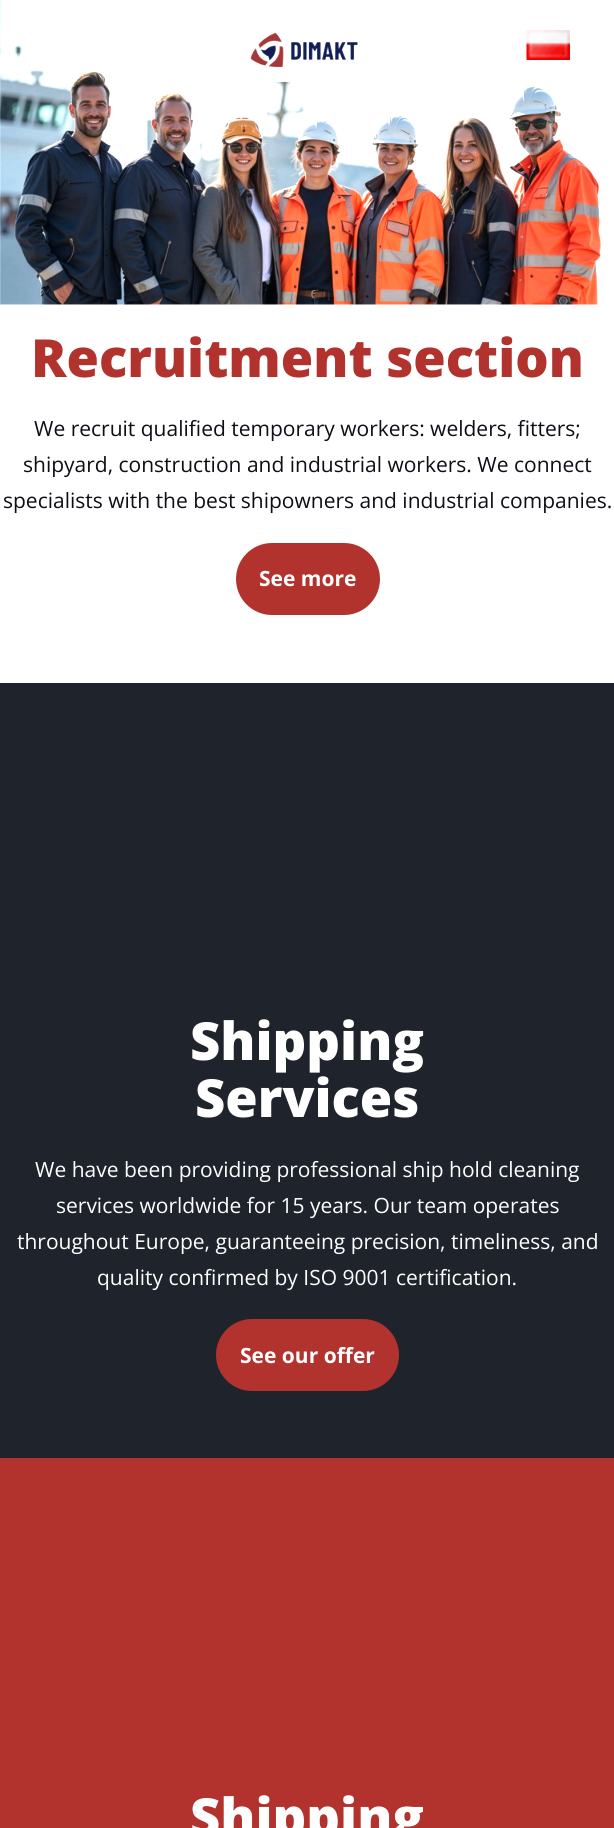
#include <cairo/cairo.h>
#include <math.h>
#include <stddef.h>

typedef struct { double x, y; const char *s; } line_t;
static cairo_t *cr;

static void rgb(unsigned color)
{
	cairo_set_source_rgb(cr, (color >> 16) / 255.0, (color >> 8 & 255) / 255.0, (color & 255) / 255.0);
}

static void rrect(double x, double y, double w, double h, double r)
{
	cairo_new_sub_path(cr);
	cairo_arc(cr, x + w - r, y + h - r, r, 0, M_PI / 2);
	cairo_arc(cr, x + r, y + h - r, r, M_PI / 2, M_PI);
	cairo_arc(cr, x + r, y + r, r, M_PI, 1.5 * M_PI);
	cairo_arc(cr, x + w - r, y + r, r, 1.5 * M_PI, 2 * M_PI);
	cairo_close_path(cr);
}

static void image(const char *path, double x, double y, double w, double h)
{
	cairo_surface_t *image = cairo_image_surface_create_from_png(path);
	cairo_save(cr);
	cairo_set_source_surface(cr, image, x, y);
	cairo_rectangle(cr, x, y, w, h);
	cairo_fill(cr);
	cairo_restore(cr);
	cairo_surface_destroy(image);
}

int main(void) {
	cairo_surface_t *surface = cairo_image_surface_create(CAIRO_FORMAT_RGB24, 614, 1828);
	cr = cairo_create(surface);
	cairo_font_options_t *options = cairo_font_options_create();
	cairo_font_options_set_hint_metrics(options, CAIRO_HINT_METRICS_OFF);
	cairo_font_options_set_hint_style(options, CAIRO_HINT_STYLE_NONE);
	cairo_set_font_options(cr, options);
	cairo_set_miter_limit(cr, 4);
	rgb(0xffffff);
	cairo_paint(cr);
	image("img/1.png", 0, 0, 601, 305);
	image("img/2.png", 526, 30, 44, 30);
	rgb(0xb2322d);
	rrect(236, 543, 144, 72, 36);
	cairo_fill(cr);
	rgb(0x1f232b);
	cairo_rectangle(cr, 0, 683, 614, 775);
	cairo_fill(cr);
	rgb(0xb2322d);
	rrect(216, 1319, 183, 72, 36);
	cairo_fill(cr);
	cairo_rectangle(cr, 0, 1458, 614, 370);
	cairo_fill(cr);
	cairo_select_font_face(cr, "Open Sans ExtraBold", CAIRO_FONT_SLANT_NORMAL, CAIRO_FONT_WEIGHT_NORMAL);
	cairo_set_font_size(cr, 52.5);
	cairo_move_to(cr, 31, 377);
	cairo_show_text(cr, "Recruitment section");
	cairo_select_font_face(cr, "Open Sans", CAIRO_FONT_SLANT_NORMAL, CAIRO_FONT_WEIGHT_NORMAL);
	cairo_set_font_size(cr, 21);
	rgb(0x0f0e17);
	{
		static const line_t items[] = {
			{34, 436, "We recruit qualified temporary workers: welders, fitters;"},
			{23, 472, "shipyard, construction and industrial workers. We connect"},
			{3, 508, "specialists with the best shipowners and industrial companies."},
		};
		for (size_t i = 0; i < sizeof items / sizeof *items; i++) {
			cairo_move_to(cr, items[i].x, items[i].y);
			cairo_show_text(cr, items[i].s);
		}
	}
	cairo_select_font_face(cr, "Open Sans", CAIRO_FONT_SLANT_NORMAL, CAIRO_FONT_WEIGHT_BOLD);
	rgb(0xffffff);
	cairo_move_to(cr, 259, 586);
	cairo_show_text(cr, "See more");
	cairo_select_font_face(cr, "Open Sans ExtraBold", CAIRO_FONT_SLANT_NORMAL, CAIRO_FONT_WEIGHT_NORMAL);
	cairo_set_font_size(cr, 52.5);
	cairo_move_to(cr, 190, 1060);
	cairo_show_text(cr, "Shipping");
	cairo_move_to(cr, 195, 1117);
	cairo_show_text(cr, "Services");
	cairo_select_font_face(cr, "Open Sans", CAIRO_FONT_SLANT_NORMAL, CAIRO_FONT_WEIGHT_NORMAL);
	cairo_set_font_size(cr, 21);
	{
		static const line_t items[] = {
			{35, 1177, "We have been providing professional ship hold cleaning"},
			{56, 1213, "services worldwide for 15 years. Our team operates"},
			{17, 1249, "throughout Europe, guaranteeing precision, timeliness, and"},
			{97, 1285, "quality confirmed by ISO 9001 certification."},
		};
		for (size_t i = 0; i < sizeof items / sizeof *items; i++) {
			cairo_move_to(cr, items[i].x, items[i].y);
			cairo_show_text(cr, items[i].s);
		}
	}
	cairo_select_font_face(cr, "Open Sans", CAIRO_FONT_SLANT_NORMAL, CAIRO_FONT_WEIGHT_BOLD);
	cairo_move_to(cr, 240, 1363);
	cairo_show_text(cr, "See our offer");
	cairo_select_font_face(cr, "Open Sans ExtraBold", CAIRO_FONT_SLANT_NORMAL, CAIRO_FONT_WEIGHT_NORMAL);
	cairo_set_font_size(cr, 52.5);
	cairo_move_to(cr, 190, 1836);
	cairo_show_text(cr, "Shipping");
	cairo_surface_write_to_png(surface, "page.png");
	cairo_font_options_destroy(options);
	cairo_destroy(cr);
	cairo_surface_destroy(surface);
	return 0;
}
